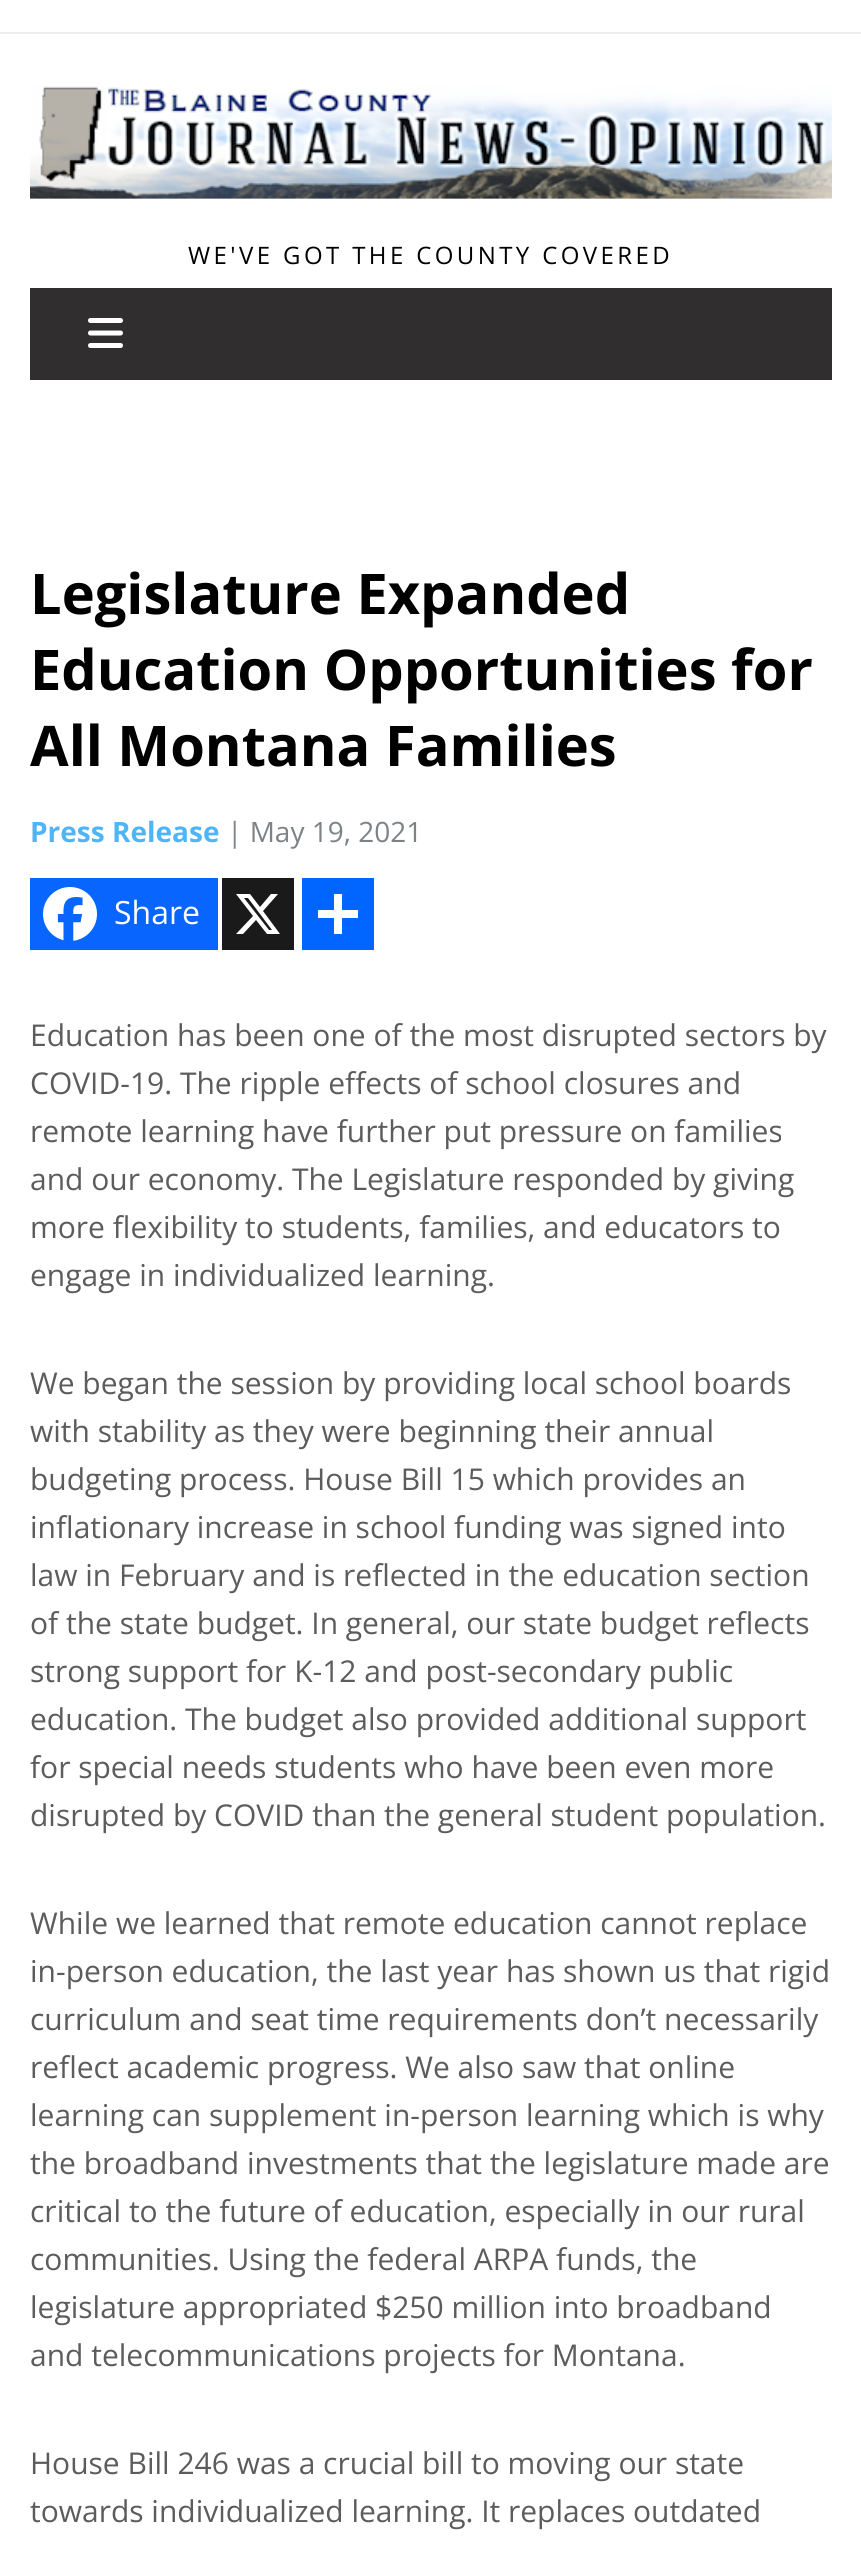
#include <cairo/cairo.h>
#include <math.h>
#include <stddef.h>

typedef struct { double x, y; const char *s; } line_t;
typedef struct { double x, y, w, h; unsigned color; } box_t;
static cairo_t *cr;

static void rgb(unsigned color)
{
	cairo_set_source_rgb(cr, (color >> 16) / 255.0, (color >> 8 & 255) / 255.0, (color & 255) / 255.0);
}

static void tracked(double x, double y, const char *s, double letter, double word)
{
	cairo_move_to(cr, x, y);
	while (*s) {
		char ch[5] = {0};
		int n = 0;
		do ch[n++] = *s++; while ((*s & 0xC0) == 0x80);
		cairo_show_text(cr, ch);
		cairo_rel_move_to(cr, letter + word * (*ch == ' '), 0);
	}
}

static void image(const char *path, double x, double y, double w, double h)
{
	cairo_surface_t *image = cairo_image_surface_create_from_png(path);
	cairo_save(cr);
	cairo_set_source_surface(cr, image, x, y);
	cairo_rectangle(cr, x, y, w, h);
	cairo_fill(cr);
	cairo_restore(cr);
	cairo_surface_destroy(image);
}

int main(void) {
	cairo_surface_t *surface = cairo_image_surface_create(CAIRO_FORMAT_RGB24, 861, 2556);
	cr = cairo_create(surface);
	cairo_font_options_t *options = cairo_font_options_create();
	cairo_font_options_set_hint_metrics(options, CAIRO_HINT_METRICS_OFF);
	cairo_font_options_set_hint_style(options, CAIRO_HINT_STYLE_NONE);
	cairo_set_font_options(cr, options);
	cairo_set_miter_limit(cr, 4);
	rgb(0xffffff);
	cairo_paint(cr);
	rgb(0xededed);
	cairo_rectangle(cr, 0, 32, 861, 2);
	cairo_fill(cr);
	image("img/1.png", 30, 86, 802, 113);
	rgb(0x312e2f);
	cairo_rectangle(cr, 30, 288, 802, 92);
	cairo_fill(cr);
	image("img/2.png", 88, 318, 35, 30);
	rgb(0x0866ff);
	cairo_rectangle(cr, 30, 878, 188, 72);
	cairo_fill(cr);
	image("img/3.png", 43, 887, 54, 54);
	rgb(0x1a1a1a);
	cairo_rectangle(cr, 222, 878, 72, 72);
	cairo_fill(cr);
	rgb(0xffffff);
	cairo_new_path(cr);
	cairo_move_to(cr, 271, 894);
	cairo_line_to(cr, 278, 894);
	cairo_line_to(cr, 263, 911);
	cairo_line_to(cr, 280, 934);
	cairo_line_to(cr, 267, 934);
	cairo_line_to(cr, 256, 920);
	cairo_line_to(cr, 243, 934);
	cairo_line_to(cr, 236, 934);
	cairo_line_to(cr, 253, 916);
	cairo_line_to(cr, 236, 894);
	cairo_line_to(cr, 250, 894);
	cairo_line_to(cr, 260, 907);
	cairo_close_path(cr);
	cairo_move_to(cr, 269, 930);
	cairo_line_to(cr, 272, 930);
	cairo_line_to(cr, 248, 898);
	cairo_line_to(cr, 244, 898);
	cairo_close_path(cr);
	cairo_fill(cr);
	{
		static const box_t items[] = {
			{302, 878, 72, 72, 0x0166ff},
			{334, 894, 8, 40, 0xffffff},
			{318, 910, 40, 8, 0xffffff},
		};
		for (size_t i = 0; i < sizeof items / sizeof *items; i++) {
			rgb(items[i].color);
			cairo_rectangle(cr, items[i].x, items[i].y, items[i].w, items[i].h);
			cairo_fill(cr);
		}
	}
	cairo_select_font_face(cr, "Open Sans", CAIRO_FONT_SLANT_NORMAL, CAIRO_FONT_WEIGHT_NORMAL);
	cairo_set_font_size(cr, 24);
	rgb(0x000000);
	tracked(188, 264, "WE'VE GOT THE COUNTY COVERED", 3.4, 0);
	cairo_select_font_face(cr, "Open Sans", CAIRO_FONT_SLANT_NORMAL, CAIRO_FONT_WEIGHT_BOLD);
	cairo_set_font_size(cr, 56);
	{
		static const line_t items[] = {
			{30, 614, "Legislature Expanded"},
			{30, 690, "Education Opportunities for"},
			{30, 766, "All Montana Families"},
		};
		for (size_t i = 0; i < sizeof items / sizeof *items; i++) {
			cairo_move_to(cr, items[i].x, items[i].y);
			cairo_show_text(cr, items[i].s);
		}
	}
	cairo_set_font_size(cr, 28);
	rgb(0x50b5f6);
	cairo_move_to(cr, 30, 842);
	cairo_show_text(cr, "Press Release");
	cairo_select_font_face(cr, "Open Sans", CAIRO_FONT_SLANT_NORMAL, CAIRO_FONT_WEIGHT_NORMAL);
	rgb(0x7c8387);
	cairo_move_to(cr, 227, 842);
	cairo_show_text(cr, "| May 19, 2021");
	cairo_set_font_size(cr, 32);
	rgb(0xffffff);
	cairo_move_to(cr, 114, 924);
	cairo_show_text(cr, "Share");
	cairo_set_font_size(cr, 30);
	rgb(0x5c5c5c);
	{
		static const line_t items[] = {
			{30, 1046, "Education has been one of the most disrupted sectors by"},
			{30, 1094, "COVID-19. The ripple effects of school closures and"},
			{30, 1142, "remote learning have further put pressure on families"},
			{30, 1190, "and our economy. The Legislature responded by giving"},
			{30, 1238, "more flexibility to students, families, and educators to"},
			{30, 1286, "engage in individualized learning."},
			{30, 1394, "We began the session by providing local school boards"},
			{30, 1442, "with stability as they were beginning their annual"},
			{30, 1490, "budgeting process. House Bill 15 which provides an"},
			{30, 1538, "inflationary increase in school funding was signed into"},
			{30, 1586, "law in February and is reflected in the education section"},
			{30, 1634, "of the state budget. In general, our state budget reflects"},
			{30, 1682, "strong support for K-12 and post-secondary public"},
			{30, 1730, "education. The budget also provided additional support"},
			{30, 1778, "for special needs students who have been even more"},
			{30, 1826, "disrupted by COVID than the general student population."},
			{30, 1934, "While we learned that remote education cannot replace"},
			{30, 1982, "in-person education, the last year has shown us that rigid"},
			{30, 2030, "curriculum and seat time requirements don’t necessarily"},
			{30, 2078, "reflect academic progress. We also saw that online"},
			{30, 2126, "learning can supplement in-person learning which is why"},
			{30, 2174, "the broadband investments that the legislature made are"},
			{30, 2222, "critical to the future of education, especially in our rural"},
			{30, 2270, "communities. Using the federal ARPA funds, the"},
			{30, 2318, "legislature appropriated $250 million into broadband"},
			{30, 2366, "and telecommunications projects for Montana."},
			{30, 2474, "House Bill 246 was a crucial bill to moving our state"},
			{30, 2522, "towards individualized learning. It replaces outdated"},
		};
		for (size_t i = 0; i < sizeof items / sizeof *items; i++) {
			cairo_move_to(cr, items[i].x, items[i].y);
			cairo_show_text(cr, items[i].s);
		}
	}
	cairo_surface_write_to_png(surface, "page.png");
	cairo_font_options_destroy(options);
	cairo_destroy(cr);
	cairo_surface_destroy(surface);
	return 0;
}
